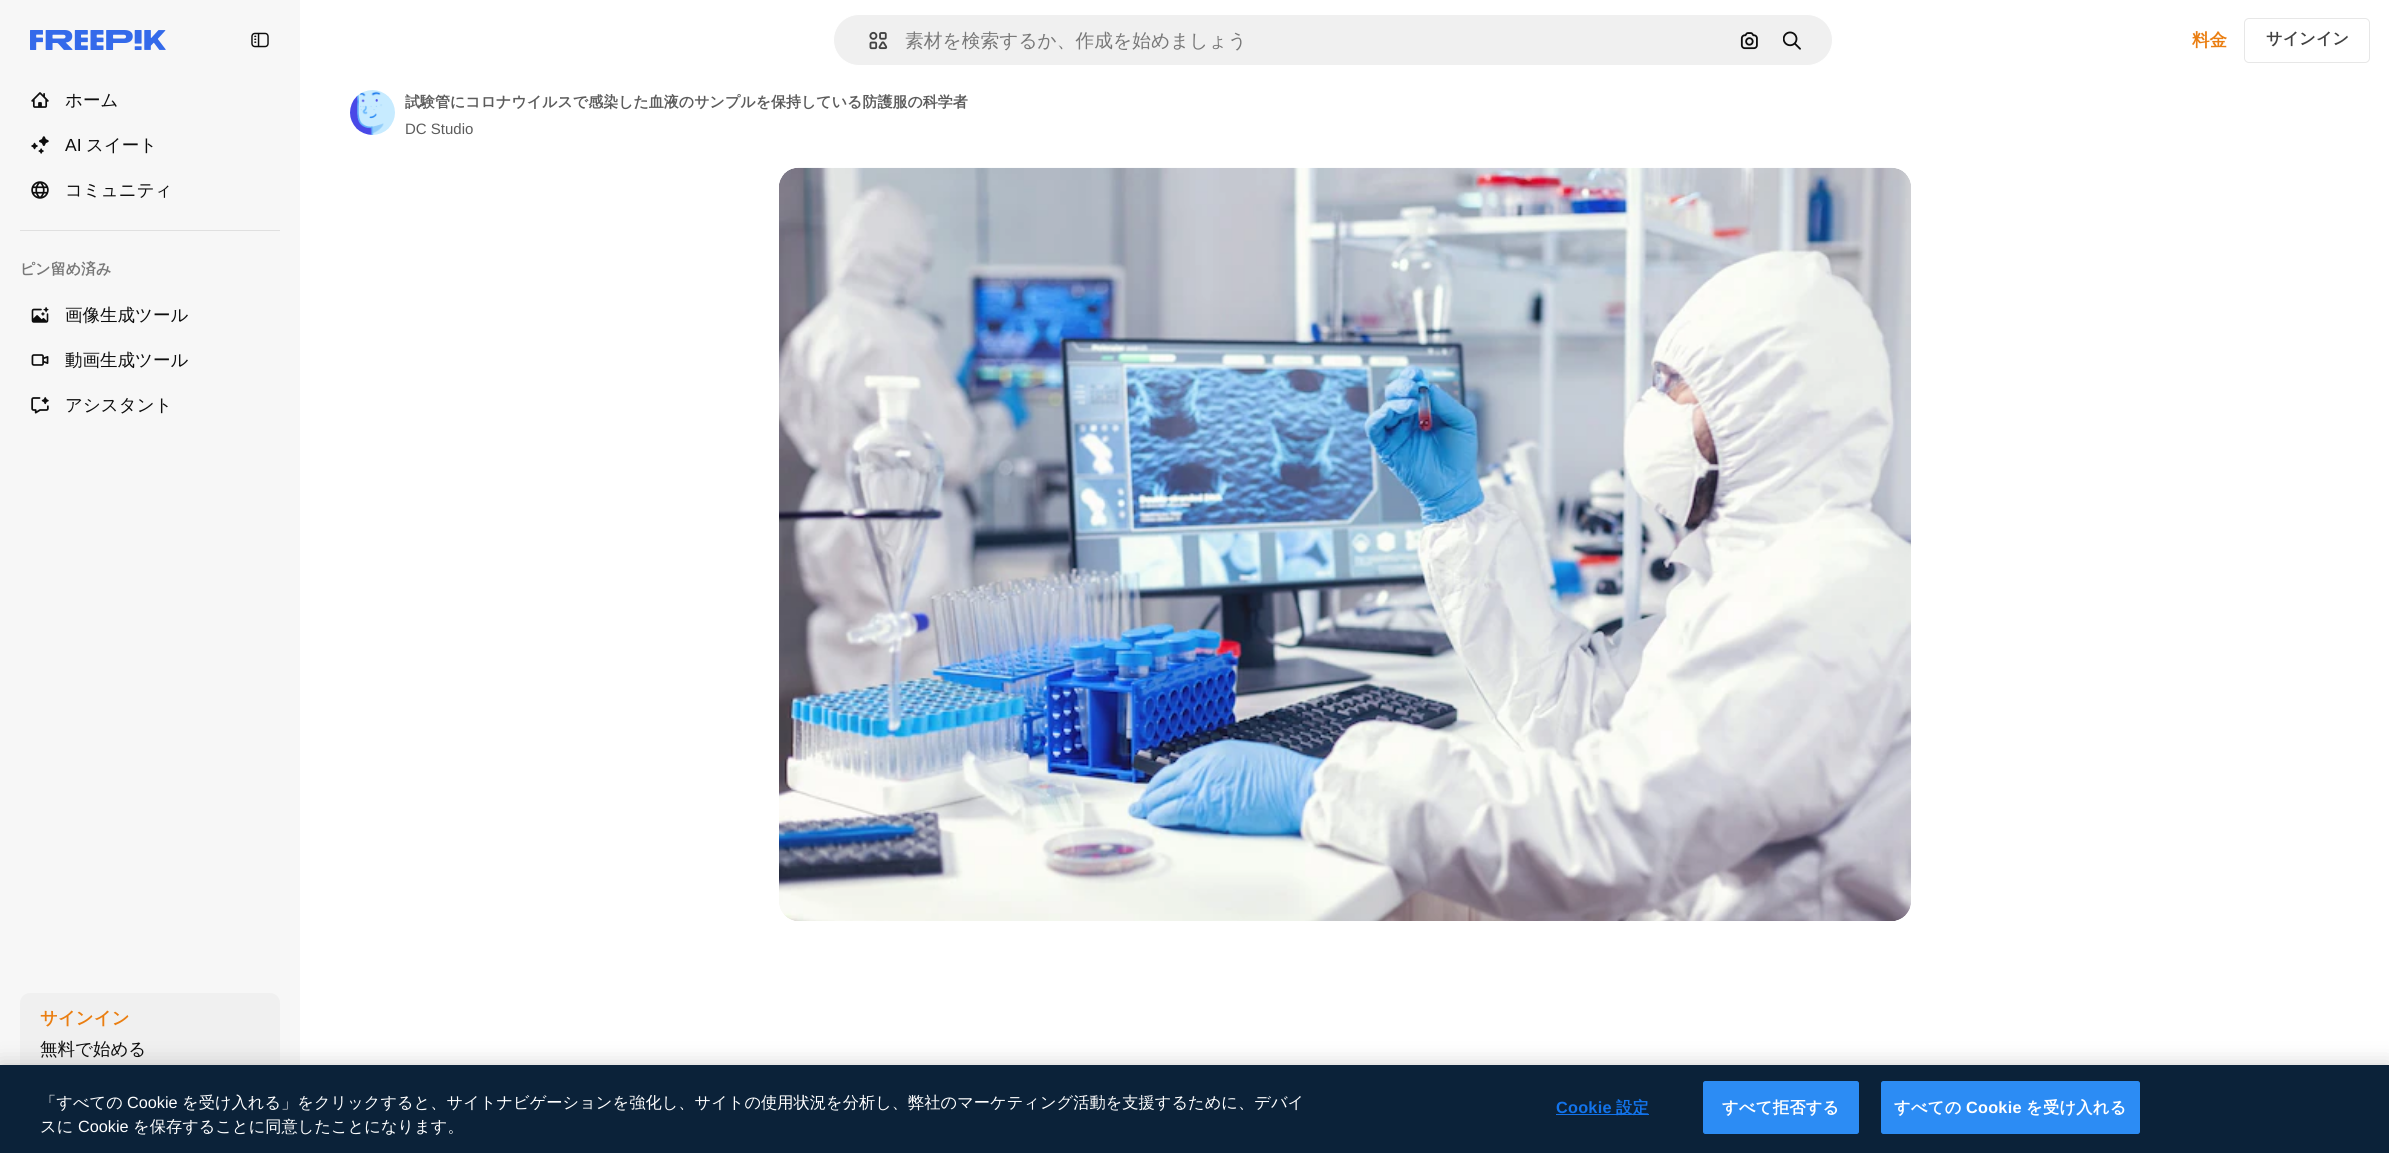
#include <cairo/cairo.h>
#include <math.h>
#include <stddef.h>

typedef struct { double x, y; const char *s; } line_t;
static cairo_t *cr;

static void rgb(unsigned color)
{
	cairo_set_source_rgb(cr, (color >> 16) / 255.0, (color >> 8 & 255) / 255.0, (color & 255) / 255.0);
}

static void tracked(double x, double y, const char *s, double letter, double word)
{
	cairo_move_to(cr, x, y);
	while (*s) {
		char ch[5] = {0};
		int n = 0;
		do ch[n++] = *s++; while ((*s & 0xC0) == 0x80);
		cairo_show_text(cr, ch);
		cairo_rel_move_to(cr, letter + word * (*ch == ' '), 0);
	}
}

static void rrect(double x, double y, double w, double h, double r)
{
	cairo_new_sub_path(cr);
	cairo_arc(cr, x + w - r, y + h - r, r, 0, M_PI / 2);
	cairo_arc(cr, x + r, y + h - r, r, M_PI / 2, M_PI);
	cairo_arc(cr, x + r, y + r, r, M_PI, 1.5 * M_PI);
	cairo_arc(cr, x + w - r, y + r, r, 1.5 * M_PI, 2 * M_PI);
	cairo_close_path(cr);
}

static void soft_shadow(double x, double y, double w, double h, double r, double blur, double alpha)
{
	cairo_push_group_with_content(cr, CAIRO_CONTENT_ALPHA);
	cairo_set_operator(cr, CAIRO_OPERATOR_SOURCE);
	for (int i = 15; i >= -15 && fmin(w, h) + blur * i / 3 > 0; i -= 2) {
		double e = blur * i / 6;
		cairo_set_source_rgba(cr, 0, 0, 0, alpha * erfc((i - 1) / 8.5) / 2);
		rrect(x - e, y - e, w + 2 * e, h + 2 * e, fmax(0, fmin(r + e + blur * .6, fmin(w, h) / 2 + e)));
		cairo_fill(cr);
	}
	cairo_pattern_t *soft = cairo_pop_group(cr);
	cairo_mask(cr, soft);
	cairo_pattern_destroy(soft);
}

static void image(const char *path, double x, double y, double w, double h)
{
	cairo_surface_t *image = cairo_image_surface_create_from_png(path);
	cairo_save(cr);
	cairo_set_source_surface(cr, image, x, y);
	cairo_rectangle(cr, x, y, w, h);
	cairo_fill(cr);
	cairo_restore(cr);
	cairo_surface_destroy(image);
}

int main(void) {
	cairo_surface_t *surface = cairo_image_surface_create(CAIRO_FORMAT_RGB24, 2389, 1153);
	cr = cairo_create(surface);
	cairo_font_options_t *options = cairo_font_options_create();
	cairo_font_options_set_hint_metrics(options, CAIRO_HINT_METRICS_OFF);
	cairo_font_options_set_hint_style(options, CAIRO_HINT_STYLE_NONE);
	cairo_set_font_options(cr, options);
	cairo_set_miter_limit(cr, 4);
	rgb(0xffffff);
	cairo_paint(cr);
	rgb(0xf7f7f7);
	cairo_rectangle(cr, 0, 0, 300, 1065);
	cairo_fill(cr);
	image("img/1.png", 30, 30, 136, 20);
	image("img/2.png", 251, 32, 18, 16);
	image("img/3.png", 31, 92, 18, 16);
	image("img/4.png", 31, 136, 18, 18);
	image("img/5.png", 31, 181, 18, 18);
	rgb(0xe0e0e0);
	cairo_rectangle(cr, 20, 230, 260, 1);
	cairo_fill(cr);
	image("img/6.png", 31, 307, 18, 16);
	image("img/7.png", 31, 354, 18, 12);
	image("img/8.png", 31, 397, 18, 17);
	rgb(0xf0f0f0);
	rrect(20, 993, 260, 81, 10);
	cairo_fill(cr);
	rrect(833.5, 14.5, 999, 51, 25.5);
	cairo_fill_preserve(cr);
	rgb(0xffffff);
	cairo_set_line_width(cr, 1);
	cairo_stroke(cr);
	image("img/9.png", 869, 31, 19, 19);
	image("img/10.png", 1740, 32, 18, 18);
	image("img/11.png", 1783, 31, 18, 19);
	rrect(2244.5, 18.5, 125, 44, 4.5);
	rgb(0xe7e7e7);
	cairo_stroke(cr);
	image("img/12.png", 350, 90, 45, 45);
	image("img/13.png", 779, 167, 1132, 754);
	rgb(0x000000);
	soft_shadow(0, 1065, 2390, 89, 0, 11, 0.2);
	rgb(0x0b2239);
	cairo_rectangle(cr, 0, 1065, 2389, 88);
	cairo_fill(cr);
	rgb(0x1273eb);
	cairo_rectangle(cr, 1556, 1114, 93, 1);
	cairo_fill(cr);
	rgb(0x2c8cf4);
	rrect(1703.5, 1081.5, 155, 52, 2);
	cairo_fill_preserve(cr);
	cairo_stroke(cr);
	rrect(1881.5, 1081.5, 258, 52, 2);
	cairo_fill_preserve(cr);
	cairo_stroke(cr);
	cairo_select_font_face(cr, "WenQuanYi Zen Hei Medium", CAIRO_FONT_SLANT_NORMAL, CAIRO_FONT_WEIGHT_NORMAL);
	cairo_set_font_size(cr, 17.5);
	rgb(0x0d0d0d);
	cairo_move_to(cr, 65, 106);
	cairo_show_text(cr, "ホーム");
	cairo_select_font_face(cr, "Liberation Sans", CAIRO_FONT_SLANT_NORMAL, CAIRO_FONT_WEIGHT_NORMAL);
	cairo_move_to(cr, 65, 151);
	cairo_show_text(cr, "AI");
	cairo_select_font_face(cr, "WenQuanYi Zen Hei Medium", CAIRO_FONT_SLANT_NORMAL, CAIRO_FONT_WEIGHT_NORMAL);
	cairo_move_to(cr, 86, 151);
	cairo_show_text(cr, "スイート");
	cairo_move_to(cr, 65, 196);
	cairo_show_text(cr, "コミュニティ");
	cairo_select_font_face(cr, "WenQuanYi Zen Hei", CAIRO_FONT_SLANT_NORMAL, CAIRO_FONT_WEIGHT_BOLD);
	cairo_set_font_size(cr, 15);
	rgb(0x787878);
	cairo_move_to(cr, 20, 274);
	cairo_show_text(cr, "ピン留め済み");
	cairo_select_font_face(cr, "WenQuanYi Zen Hei Medium", CAIRO_FONT_SLANT_NORMAL, CAIRO_FONT_WEIGHT_NORMAL);
	cairo_set_font_size(cr, 17.5);
	rgb(0x0d0d0d);
	{
		static const line_t items[] = {
			{65, 321, "画像生成ツール"},
			{65, 366, "動画生成ツール"},
			{65, 411, "アシスタント"},
		};
		for (size_t i = 0; i < sizeof items / sizeof *items; i++) {
			cairo_move_to(cr, items[i].x, items[i].y);
			cairo_show_text(cr, items[i].s);
		}
	}
	cairo_select_font_face(cr, "WenQuanYi Zen Hei", CAIRO_FONT_SLANT_NORMAL, CAIRO_FONT_WEIGHT_BOLD);
	rgb(0xea7e11);
	cairo_move_to(cr, 40, 1024);
	cairo_show_text(cr, "サインイン");
	cairo_select_font_face(cr, "WenQuanYi Zen Hei Medium", CAIRO_FONT_SLANT_NORMAL, CAIRO_FONT_WEIGHT_NORMAL);
	rgb(0x0d0d0d);
	cairo_move_to(cr, 40, 1055);
	cairo_show_text(cr, "無料で始める");
	cairo_set_font_size(cr, 18.75);
	rgb(0x787878);
	cairo_move_to(cr, 905, 47);
	cairo_show_text(cr, "素材を検索するか、作成を始めましょう");
	cairo_select_font_face(cr, "WenQuanYi Zen Hei", CAIRO_FONT_SLANT_NORMAL, CAIRO_FONT_WEIGHT_BOLD);
	cairo_set_font_size(cr, 17.5);
	rgb(0xea7e11);
	cairo_move_to(cr, 2192, 46);
	cairo_show_text(cr, "料金");
	cairo_set_font_size(cr, 16.25);
	rgb(0x424242);
	cairo_move_to(cr, 2266, 44);
	cairo_show_text(cr, "サインイン");
	cairo_set_font_size(cr, 15);
	rgb(0x5c5c5c);
	cairo_move_to(cr, 405, 107);
	cairo_show_text(cr, "試験管にコロナウイルスで感染した血液のサンプルを保持している防護服の科学者");
	cairo_select_font_face(cr, "Liberation Sans", CAIRO_FONT_SLANT_NORMAL, CAIRO_FONT_WEIGHT_NORMAL);
	cairo_move_to(cr, 405, 134);
	cairo_show_text(cr, "DC Studio");
	cairo_select_font_face(cr, "WenQuanYi Zen Hei Medium", CAIRO_FONT_SLANT_NORMAL, CAIRO_FONT_WEIGHT_NORMAL);
	cairo_set_font_size(cr, 16.25);
	rgb(0xffffff);
	cairo_move_to(cr, 40, 1108);
	cairo_show_text(cr, "「すべての");
	cairo_select_font_face(cr, "Liberation Sans", CAIRO_FONT_SLANT_NORMAL, CAIRO_FONT_WEIGHT_NORMAL);
	cairo_move_to(cr, 127, 1108);
	cairo_show_text(cr, "Cookie");
	cairo_select_font_face(cr, "WenQuanYi Zen Hei Medium", CAIRO_FONT_SLANT_NORMAL, CAIRO_FONT_WEIGHT_NORMAL);
	cairo_move_to(cr, 182, 1108);
	cairo_show_text(cr, "を受け入れる」をクリックすると、サイトナビゲーションを強化し、サイトの使用状況を分析し、弊社のマーケティング活動を支援するために、デバイ");
	cairo_move_to(cr, 40, 1132);
	cairo_show_text(cr, "スに");
	cairo_select_font_face(cr, "Liberation Sans", CAIRO_FONT_SLANT_NORMAL, CAIRO_FONT_WEIGHT_NORMAL);
	cairo_move_to(cr, 78, 1132);
	cairo_show_text(cr, "Cookie");
	cairo_select_font_face(cr, "WenQuanYi Zen Hei Medium", CAIRO_FONT_SLANT_NORMAL, CAIRO_FONT_WEIGHT_NORMAL);
	cairo_move_to(cr, 133, 1132);
	cairo_show_text(cr, "を保存することに同意したことになります。");
	cairo_select_font_face(cr, "Liberation Sans", CAIRO_FONT_SLANT_NORMAL, CAIRO_FONT_WEIGHT_BOLD);
	rgb(0x1273eb);
	tracked(1556, 1113, "Cookie", 0.25, 0);
	cairo_select_font_face(cr, "WenQuanYi Zen Hei", CAIRO_FONT_SLANT_NORMAL, CAIRO_FONT_WEIGHT_BOLD);
	tracked(1616, 1113, "設定", 0.25, 0);
	rgb(0xffffff);
	tracked(1722, 1113, "すべて拒否する", 0.25, 0);
	tracked(1894, 1113, "すべての", 0.25, 0);
	cairo_select_font_face(cr, "Liberation Sans", CAIRO_FONT_SLANT_NORMAL, CAIRO_FONT_WEIGHT_BOLD);
	tracked(1966, 1113, "Cookie", 0.25, 0);
	cairo_select_font_face(cr, "WenQuanYi Zen Hei", CAIRO_FONT_SLANT_NORMAL, CAIRO_FONT_WEIGHT_BOLD);
	tracked(2026, 1113, "を受け入れる", 0.25, 0);
	cairo_surface_write_to_png(surface, "page.png");
	cairo_font_options_destroy(options);
	cairo_destroy(cr);
	cairo_surface_destroy(surface);
	return 0;
}
